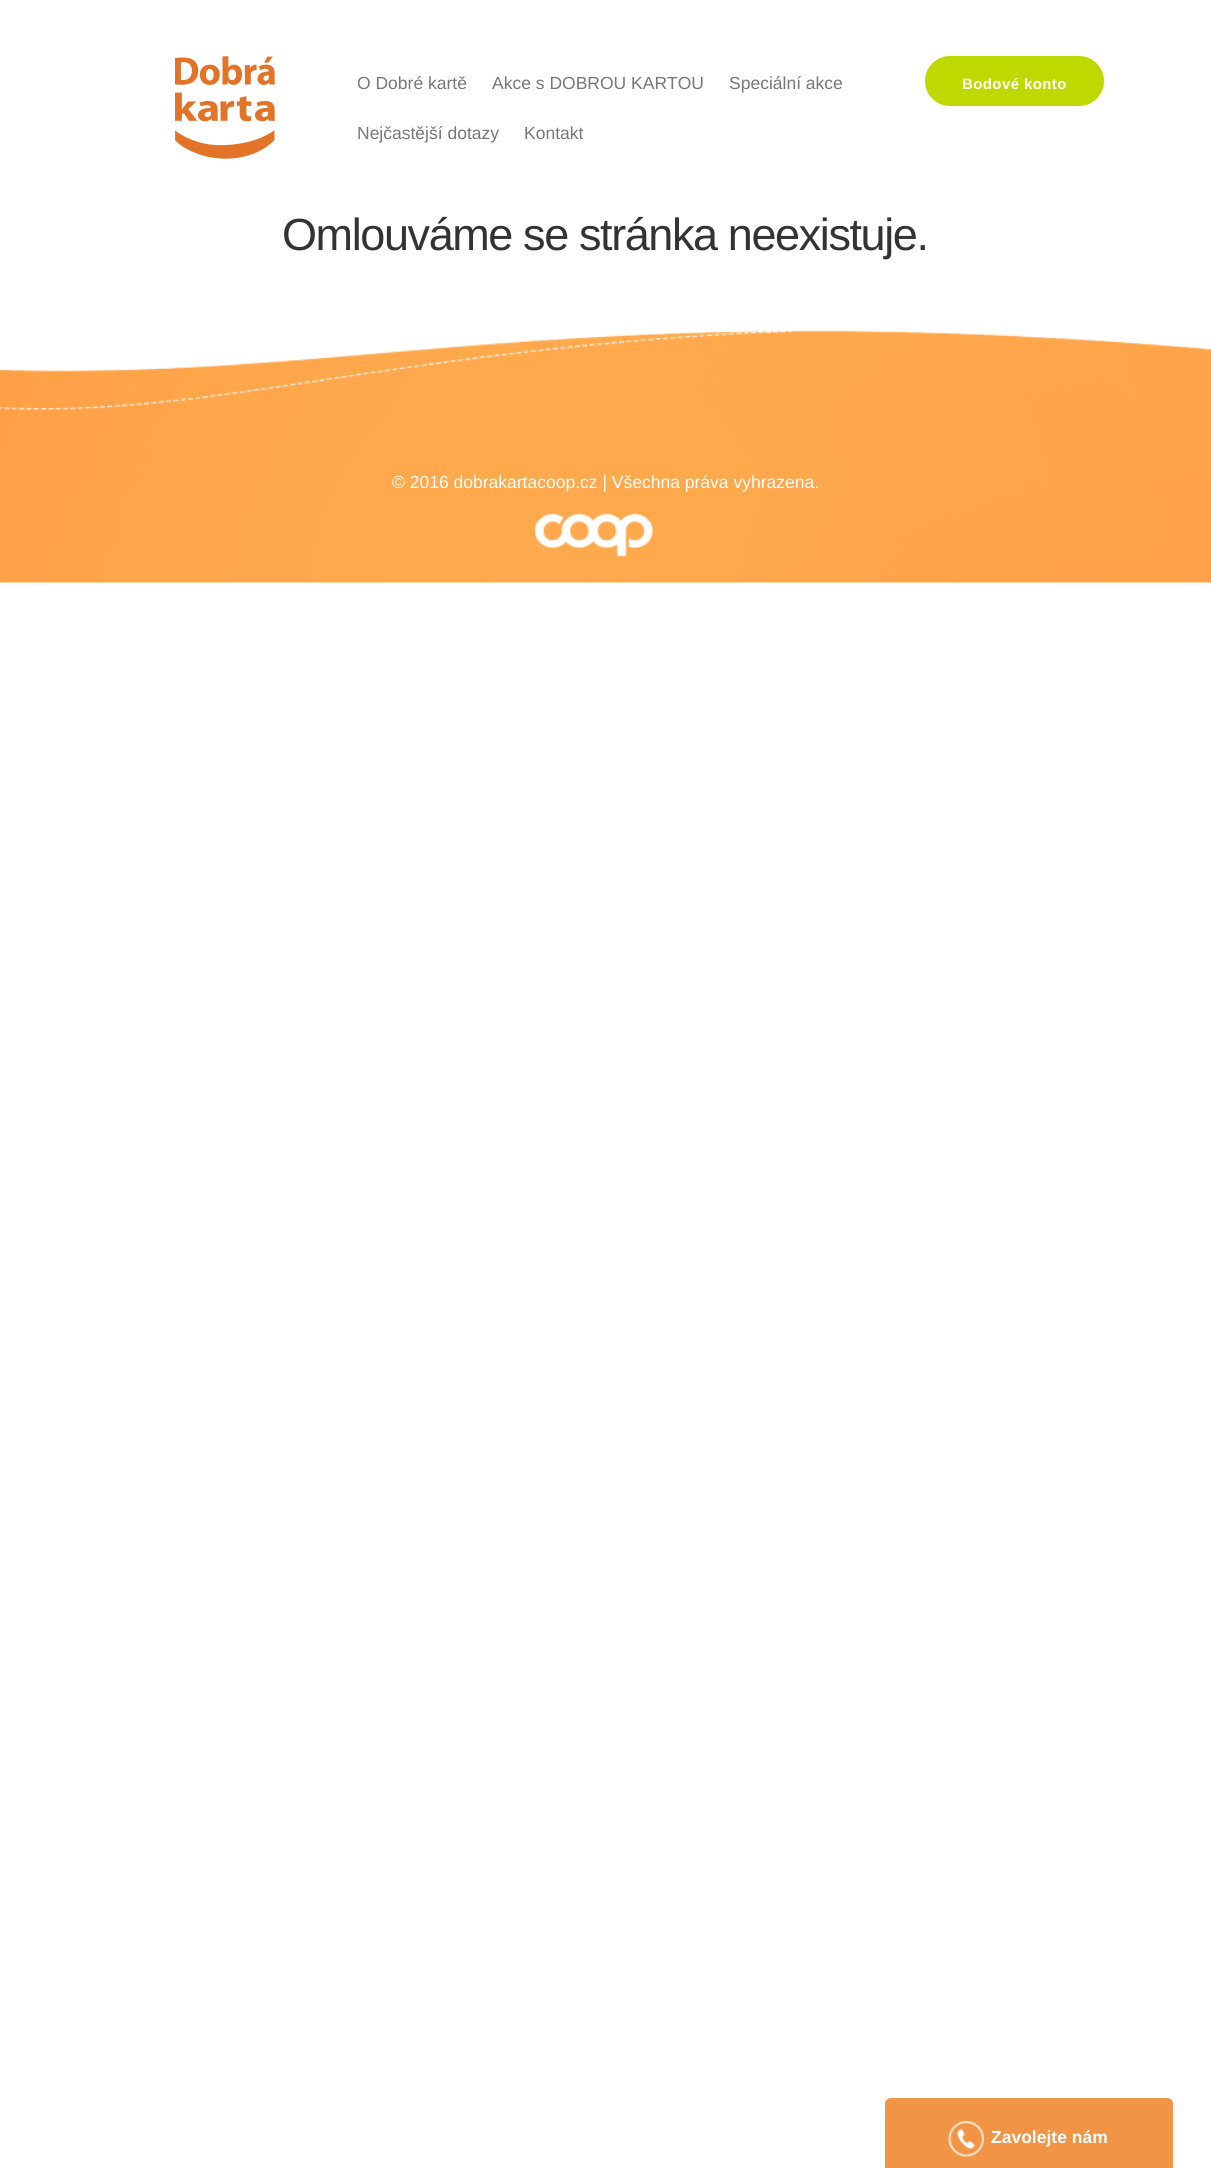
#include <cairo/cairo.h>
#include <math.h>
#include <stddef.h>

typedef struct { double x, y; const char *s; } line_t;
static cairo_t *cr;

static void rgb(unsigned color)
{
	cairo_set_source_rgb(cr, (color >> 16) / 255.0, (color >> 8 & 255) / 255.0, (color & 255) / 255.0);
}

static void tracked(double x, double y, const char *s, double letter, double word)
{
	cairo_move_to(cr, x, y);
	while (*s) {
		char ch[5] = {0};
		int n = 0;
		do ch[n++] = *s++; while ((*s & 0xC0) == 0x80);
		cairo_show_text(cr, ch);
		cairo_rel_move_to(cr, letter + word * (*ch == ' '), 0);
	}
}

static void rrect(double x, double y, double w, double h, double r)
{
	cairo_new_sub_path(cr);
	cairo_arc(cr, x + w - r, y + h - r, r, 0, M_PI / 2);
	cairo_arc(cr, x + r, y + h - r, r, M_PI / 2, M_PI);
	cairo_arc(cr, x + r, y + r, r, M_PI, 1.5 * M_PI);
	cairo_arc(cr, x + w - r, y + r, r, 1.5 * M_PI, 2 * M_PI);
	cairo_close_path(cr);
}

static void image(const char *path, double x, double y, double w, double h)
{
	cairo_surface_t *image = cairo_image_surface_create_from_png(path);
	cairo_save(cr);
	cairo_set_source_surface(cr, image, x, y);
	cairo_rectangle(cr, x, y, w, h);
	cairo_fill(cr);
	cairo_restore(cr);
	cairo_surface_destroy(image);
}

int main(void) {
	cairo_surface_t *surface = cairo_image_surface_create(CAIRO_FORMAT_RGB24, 1211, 2168);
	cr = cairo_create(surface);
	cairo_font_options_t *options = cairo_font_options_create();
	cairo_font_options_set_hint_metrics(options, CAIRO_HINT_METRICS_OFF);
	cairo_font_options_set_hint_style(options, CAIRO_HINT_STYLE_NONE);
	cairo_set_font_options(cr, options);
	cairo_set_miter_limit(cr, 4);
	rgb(0xffffff);
	cairo_paint(cr);
	image("img/1.png", 175, 56, 100, 103);
	rgb(0xbdd900);
	rrect(925, 56, 179, 50, 25);
	cairo_fill(cr);
	image("img/2.png", 0, 330, 1211, 253);
	image("img/3.png", 535, 513, 118, 44);
	rgb(0xf29446);
	cairo_new_path(cr);
	cairo_move_to(cr, 891, 2098);
	cairo_line_to(cr, 1167, 2098);
	cairo_curve_to(cr, 1170.5, 2098, 1173, 2100.5, 1173, 2104);
	cairo_line_to(cr, 1173, 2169);
	cairo_line_to(cr, 885, 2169);
	cairo_line_to(cr, 885, 2104);
	cairo_curve_to(cr, 885, 2100.5, 887.5, 2098, 891, 2098);
	cairo_close_path(cr);
	cairo_fill(cr);
	image("img/4.png", 948, 2121, 36, 36);
	cairo_select_font_face(cr, "Liberation Sans", CAIRO_FONT_SLANT_NORMAL, CAIRO_FONT_WEIGHT_NORMAL);
	cairo_set_font_size(cr, 17.5);
	rgb(0x777777);
	{
		static const line_t items[] = {
			{357, 89, "O Dobré kartě"},
			{492, 89, "Akce s DOBROU KARTOU"},
			{729, 89, "Speciální akce"},
			{357, 139, "Nejčastější dotazy"},
			{524, 139, "Kontakt"},
		};
		for (size_t i = 0; i < sizeof items / sizeof *items; i++) {
			cairo_move_to(cr, items[i].x, items[i].y);
			cairo_show_text(cr, items[i].s);
		}
	}
	cairo_select_font_face(cr, "Liberation Sans", CAIRO_FONT_SLANT_NORMAL, CAIRO_FONT_WEIGHT_BOLD);
	cairo_set_font_size(cr, 15);
	rgb(0xffffff);
	tracked(962, 89, "Bodové konto", 0.4, 0);
	cairo_select_font_face(cr, "Liberation Sans", CAIRO_FONT_SLANT_NORMAL, CAIRO_FONT_WEIGHT_NORMAL);
	cairo_set_font_size(cr, 45);
	rgb(0x333333);
	tracked(282, 250, "Omlouváme se stránka neexistuje.", -1.4, 0);
	cairo_set_font_size(cr, 17.5);
	rgb(0xffffff);
	cairo_move_to(cr, 392, 488);
	cairo_show_text(cr, "© 2016 dobrakartacoop.cz | Všechna práva vyhrazena.");
	cairo_select_font_face(cr, "Liberation Sans", CAIRO_FONT_SLANT_NORMAL, CAIRO_FONT_WEIGHT_BOLD);
	cairo_move_to(cr, 991, 2143);
	cairo_show_text(cr, "Zavolejte nám");
	cairo_surface_write_to_png(surface, "page.png");
	cairo_font_options_destroy(options);
	cairo_destroy(cr);
	cairo_surface_destroy(surface);
	return 0;
}
